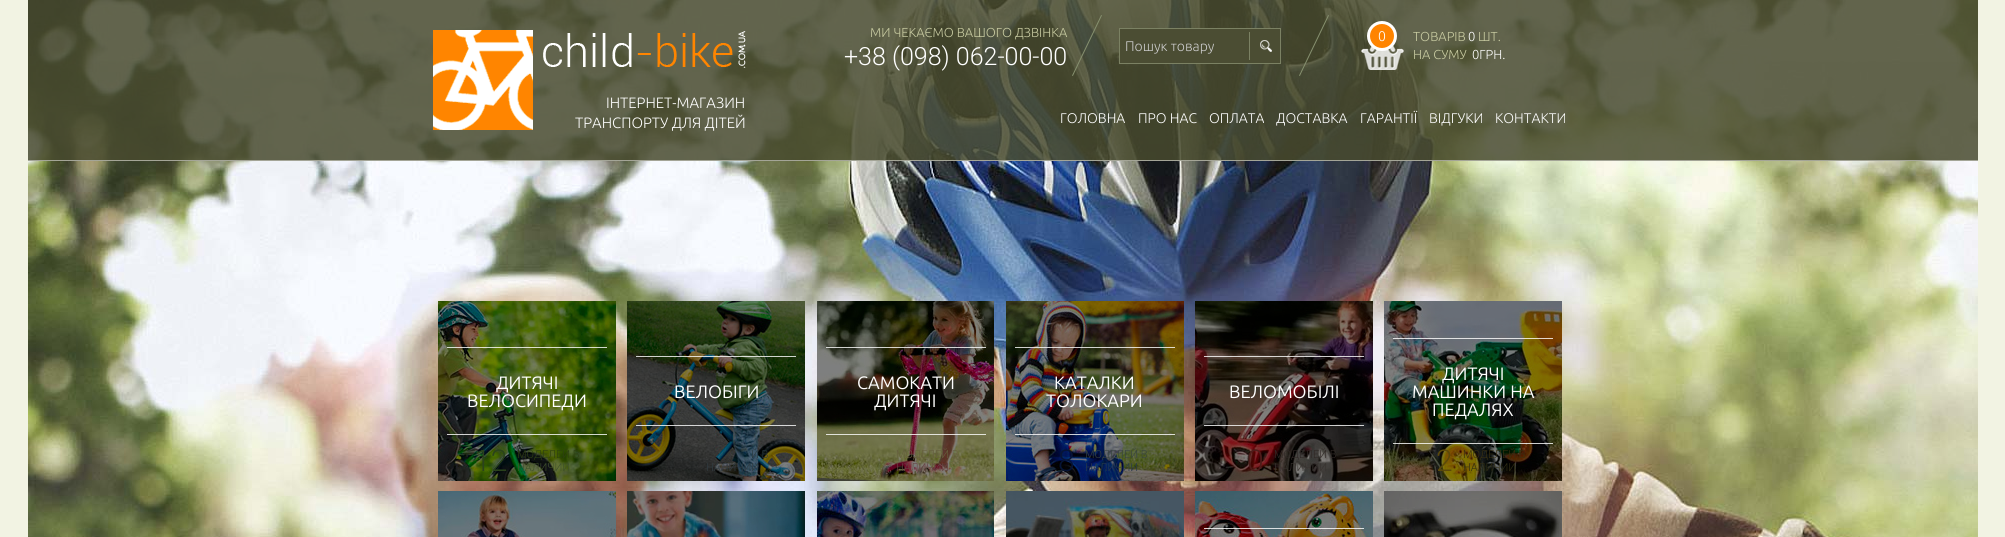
#include <cairo/cairo.h>
#include <math.h>
#include <stddef.h>

typedef struct { double x, y; const char *s; } line_t;
static cairo_t *cr;

static void rgb(unsigned color)
{
	cairo_set_source_rgb(cr, (color >> 16) / 255.0, (color >> 8 & 255) / 255.0, (color & 255) / 255.0);
}

static void image(const char *path, double x, double y, double w, double h)
{
	cairo_surface_t *image = cairo_image_surface_create_from_png(path);
	cairo_save(cr);
	cairo_set_source_surface(cr, image, x, y);
	cairo_rectangle(cr, x, y, w, h);
	cairo_fill(cr);
	cairo_restore(cr);
	cairo_surface_destroy(image);
}

int main(void) {
	cairo_surface_t *surface = cairo_image_surface_create(CAIRO_FORMAT_RGB24, 2005, 537);
	cr = cairo_create(surface);
	cairo_font_options_t *options = cairo_font_options_create();
	cairo_font_options_set_hint_metrics(options, CAIRO_HINT_METRICS_OFF);
	cairo_font_options_set_hint_style(options, CAIRO_HINT_STYLE_NONE);
	cairo_set_font_options(cr, options);
	cairo_set_miter_limit(cr, 4);
	rgb(0xf2f3e3);
	cairo_paint(cr);
	image("img/1.png", 28, 0, 1950, 537);
	cairo_set_source_rgba(cr, 0.282, 0.29, 0.18, 0.85);
	cairo_rectangle(cr, 28, 0, 1950, 160);
	cairo_fill(cr);
	rgb(0xa4a597);
	cairo_rectangle(cr, 28, 160, 1950, 1);
	cairo_fill(cr);
	image("img/2.png", 433, 30, 313, 100);
	image("img/3.png", 1072, 15, 30, 61);
	rgb(0x4b4d33);
	cairo_rectangle(cr, 1119.5, 28.5, 161, 35);
	cairo_fill_preserve(cr);
	rgb(0x7b8163);
	cairo_set_line_width(cr, 1);
	cairo_stroke(cr);
	image("img/4.png", 1260, 40, 12, 12);
	cairo_rectangle(cr, 1249, 32, 1, 28);
	cairo_fill(cr);
	image("img/5.png", 1299, 15, 30, 61);
	image("img/6.png", 1361, 45, 43, 25);
	rgb(0xff8400);
	cairo_arc(cr, 1382, 36, 13.5, 0, 2 * M_PI);
	cairo_fill_preserve(cr);
	rgb(0xffffff);
	cairo_set_line_width(cr, 3);
	cairo_stroke(cr);
	image("img/7.png", 438, 301, 178, 180);
	image("img/8.png", 627, 301, 178, 180);
	image("img/9.png", 817, 301, 177, 180);
	image("img/10.png", 1006, 301, 178, 180);
	image("img/11.png", 1195, 301, 178, 180);
	image("img/12.png", 1384, 301, 178, 180);
	image("img/13.png", 438, 491, 178, 46);
	image("img/14.png", 627, 491, 178, 46);
	image("img/15.png", 817, 491, 177, 46);
	image("img/16.png", 1006, 491, 178, 46);
	image("img/17.png", 1195, 491, 178, 46);
	cairo_set_source_rgba(cr, 1, 1, 1, 0.8);
	cairo_rectangle(cr, 1204, 528, 160, 1);
	cairo_fill(cr);
	image("img/18.png", 1384, 491, 178, 46);
	cairo_select_font_face(cr, "Ubuntu Light", CAIRO_FONT_SLANT_NORMAL, CAIRO_FONT_WEIGHT_NORMAL);
	cairo_set_font_size(cr, 15);
	rgb(0xffffff);
	cairo_move_to(cr, 606, 108);
	cairo_show_text(cr, "ІНТЕРНЕТ-МАГАЗИН");
	cairo_move_to(cr, 575, 128);
	cairo_show_text(cr, "ТРАНСПОРТУ ДЛЯ ДІТЕЙ");
	cairo_set_font_size(cr, 13);
	rgb(0xc9cca2);
	cairo_move_to(cr, 870, 37);
	cairo_show_text(cr, "МИ ЧЕКАЄМО ВАШОГО ДЗВІНКА");
	cairo_select_font_face(cr, "Roboto Light", CAIRO_FONT_SLANT_NORMAL, CAIRO_FONT_WEIGHT_NORMAL);
	cairo_set_font_size(cr, 25);
	rgb(0xffffff);
	cairo_move_to(cr, 844, 65);
	cairo_show_text(cr, "+38 (098) 062-00-00");
	cairo_select_font_face(cr, "Ubuntu Light", CAIRO_FONT_SLANT_NORMAL, CAIRO_FONT_WEIGHT_NORMAL);
	cairo_set_font_size(cr, 14);
	rgb(0xcccccc);
	cairo_move_to(cr, 1125, 51);
	cairo_show_text(cr, "Пошук товару");
	rgb(0xffffff);
	cairo_move_to(cr, 1378, 41);
	cairo_show_text(cr, "0");
	cairo_set_font_size(cr, 13);
	rgb(0xc9cca2);
	cairo_move_to(cr, 1413, 41);
	cairo_show_text(cr, "ТОВАРІВ");
	rgb(0xffffff);
	cairo_move_to(cr, 1468, 41);
	cairo_show_text(cr, "0");
	rgb(0xc9cca2);
	cairo_move_to(cr, 1478, 41);
	cairo_show_text(cr, "ШТ.");
	cairo_move_to(cr, 1413, 59);
	cairo_show_text(cr, "НА СУМУ");
	rgb(0xffffff);
	cairo_move_to(cr, 1472, 59);
	cairo_show_text(cr, "0ГРН.");
	cairo_set_font_size(cr, 14);
	{
		static const line_t items[] = {
			{1060, 123, "ГОЛОВНА"},
			{1138, 123, "ПРО НАС"},
			{1209, 123, "ОПЛАТА"},
			{1276, 123, "ДОСТАВКА"},
			{1360, 123, "ГАРАНТІЇ"},
			{1429, 123, "ВІДГУКИ"},
			{1495, 123, "КОНТАКТИ"},
		};
		for (size_t i = 0; i < sizeof items / sizeof *items; i++) {
			cairo_move_to(cr, items[i].x, items[i].y);
			cairo_show_text(cr, items[i].s);
		}
	}
	cairo_select_font_face(cr, "Roboto Light", CAIRO_FONT_SLANT_NORMAL, CAIRO_FONT_WEIGHT_NORMAL);
	cairo_set_font_size(cr, 30);
	rgb(0x548538);
	cairo_move_to(cr, 474, 471);
	cairo_show_text(cr, "12");
	cairo_set_font_size(cr, 11);
	rgb(0x5b7f23);
	cairo_move_to(cr, 517, 458);
	cairo_show_text(cr, "МОДЕЛЕЙ В");
	rgb(0x7da253);
	cairo_move_to(cr, 517, 471);
	cairo_show_text(cr, "НАЛИЧИИ");
	cairo_set_source_rgba(cr, 0, 0, 0, 0.5);
	cairo_rectangle(cr, 438, 301, 178, 180);
	cairo_fill(cr);
	cairo_select_font_face(cr, "Ubuntu", CAIRO_FONT_SLANT_NORMAL, CAIRO_FONT_WEIGHT_NORMAL);
	cairo_set_font_size(cr, 18);
	rgb(0xffffff);
	cairo_move_to(cr, 467, 407);
	cairo_show_text(cr, "ВЕЛОСИПЕДИ");
	cairo_move_to(cr, 496, 389);
	cairo_show_text(cr, "ДИТЯЧІ");
	cairo_set_source_rgba(cr, 1, 1, 1, 0.8);
	cairo_rectangle(cr, 447, 434, 160, 1);
	cairo_fill(cr);
	cairo_rectangle(cr, 447, 347, 160, 1);
	cairo_fill(cr);
	cairo_select_font_face(cr, "Roboto Light", CAIRO_FONT_SLANT_NORMAL, CAIRO_FONT_WEIGHT_NORMAL);
	cairo_set_font_size(cr, 11);
	rgb(0x52717c);
	cairo_move_to(cr, 751, 458);
	cairo_show_text(cr, "Й В");
	rgb(0x627884);
	cairo_move_to(cr, 706, 471);
	cairo_show_text(cr, "НАЛИЧИИ");
	cairo_set_source_rgba(cr, 0, 0, 0, 0.5);
	cairo_rectangle(cr, 627, 301, 178, 180);
	cairo_fill(cr);
	cairo_select_font_face(cr, "Ubuntu", CAIRO_FONT_SLANT_NORMAL, CAIRO_FONT_WEIGHT_NORMAL);
	cairo_set_font_size(cr, 18);
	rgb(0xffffff);
	cairo_move_to(cr, 674, 398);
	cairo_show_text(cr, "ВЕЛОБІГИ");
	cairo_set_source_rgba(cr, 1, 1, 1, 0.8);
	cairo_rectangle(cr, 636, 425, 160, 1);
	cairo_fill(cr);
	cairo_rectangle(cr, 636, 356, 160, 1);
	cairo_fill(cr);
	cairo_select_font_face(cr, "Roboto Light", CAIRO_FONT_SLANT_NORMAL, CAIRO_FONT_WEIGHT_NORMAL);
	cairo_set_font_size(cr, 11);
	rgb(0xccbe7c);
	cairo_move_to(cr, 896, 458);
	cairo_show_text(cr, "МОДЕЛЕЙ В");
	rgb(0xcd8985);
	cairo_move_to(cr, 896, 471);
	cairo_show_text(cr, "НАЛИЧИИ");
	cairo_set_source_rgba(cr, 0, 0, 0, 0.5);
	cairo_rectangle(cr, 817, 301, 177, 180);
	cairo_fill(cr);
	cairo_select_font_face(cr, "Ubuntu", CAIRO_FONT_SLANT_NORMAL, CAIRO_FONT_WEIGHT_NORMAL);
	cairo_set_font_size(cr, 18);
	rgb(0xffffff);
	cairo_move_to(cr, 874, 407);
	cairo_show_text(cr, "ДИТЯЧІ");
	cairo_move_to(cr, 857, 389);
	cairo_show_text(cr, "САМОКАТИ");
	cairo_set_source_rgba(cr, 1, 1, 1, 0.8);
	cairo_rectangle(cr, 826, 434, 160, 1);
	cairo_fill(cr);
	cairo_rectangle(cr, 826, 347, 160, 1);
	cairo_fill(cr);
	cairo_select_font_face(cr, "Roboto Light", CAIRO_FONT_SLANT_NORMAL, CAIRO_FONT_WEIGHT_NORMAL);
	cairo_set_font_size(cr, 30);
	rgb(0x0d286c);
	cairo_move_to(cr, 1058, 471);
	cairo_show_text(cr, "8");
	cairo_set_font_size(cr, 11);
	rgb(0x71897f);
	cairo_move_to(cr, 1085, 458);
	cairo_show_text(cr, "МОДЕЛЕЙ В");
	rgb(0x517497);
	cairo_move_to(cr, 1085, 471);
	cairo_show_text(cr, "НАЛИЧИИ");
	cairo_set_source_rgba(cr, 0, 0, 0, 0.5);
	cairo_rectangle(cr, 1006, 301, 178, 180);
	cairo_fill(cr);
	cairo_select_font_face(cr, "Ubuntu", CAIRO_FONT_SLANT_NORMAL, CAIRO_FONT_WEIGHT_NORMAL);
	cairo_set_font_size(cr, 18);
	rgb(0xffffff);
	cairo_move_to(cr, 1046, 407);
	cairo_show_text(cr, "ТОЛОКАРИ");
	cairo_move_to(cr, 1054, 389);
	cairo_show_text(cr, "КАТАЛКИ");
	cairo_set_source_rgba(cr, 1, 1, 1, 0.8);
	cairo_rectangle(cr, 1015, 434, 160, 1);
	cairo_fill(cr);
	cairo_rectangle(cr, 1015, 347, 160, 1);
	cairo_fill(cr);
	cairo_select_font_face(cr, "Roboto Light", CAIRO_FONT_SLANT_NORMAL, CAIRO_FONT_WEIGHT_NORMAL);
	cairo_set_font_size(cr, 30);
	rgb(0x9c3834);
	cairo_move_to(cr, 1247, 471);
	cairo_show_text(cr, "0");
	cairo_set_font_size(cr, 11);
	rgb(0x61524d);
	cairo_move_to(cr, 1274, 458);
	cairo_show_text(cr, "МОДЕЛЕЙ В");
	rgb(0x70665f);
	cairo_move_to(cr, 1274, 471);
	cairo_show_text(cr, "НАЛИЧИИ");
	cairo_set_source_rgba(cr, 0, 0, 0, 0.5);
	cairo_rectangle(cr, 1195, 301, 178, 180);
	cairo_fill(cr);
	cairo_select_font_face(cr, "Ubuntu", CAIRO_FONT_SLANT_NORMAL, CAIRO_FONT_WEIGHT_NORMAL);
	cairo_set_font_size(cr, 18);
	rgb(0xffffff);
	cairo_move_to(cr, 1229, 398);
	cairo_show_text(cr, "ВЕЛОМОБІЛІ");
	cairo_set_source_rgba(cr, 1, 1, 1, 0.8);
	cairo_rectangle(cr, 1204, 425, 160, 1);
	cairo_fill(cr);
	cairo_rectangle(cr, 1204, 356, 160, 1);
	cairo_fill(cr);
	cairo_select_font_face(cr, "Roboto Light", CAIRO_FONT_SLANT_NORMAL, CAIRO_FONT_WEIGHT_NORMAL);
	cairo_set_font_size(cr, 30);
	rgb(0xb69314);
	cairo_move_to(cr, 1436, 471);
	cairo_show_text(cr, "2");
	cairo_set_font_size(cr, 11);
	rgb(0x705d22);
	cairo_move_to(cr, 1463, 458);
	cairo_show_text(cr, "МОДЕЛЕЙ В");
	rgb(0x615a28);
	cairo_move_to(cr, 1463, 471);
	cairo_show_text(cr, "НАЛИЧИИ");
	cairo_set_source_rgba(cr, 0, 0, 0, 0.5);
	cairo_rectangle(cr, 1384, 301, 178, 180);
	cairo_fill(cr);
	cairo_select_font_face(cr, "Ubuntu", CAIRO_FONT_SLANT_NORMAL, CAIRO_FONT_WEIGHT_NORMAL);
	cairo_set_font_size(cr, 18);
	rgb(0xffffff);
	{
		static const line_t items[] = {
			{1432, 416, "ПЕДАЛЯХ"},
			{1412, 398, "МАШИНКИ НА"},
			{1442, 380, "ДИТЯЧІ"},
		};
		for (size_t i = 0; i < sizeof items / sizeof *items; i++) {
			cairo_move_to(cr, items[i].x, items[i].y);
			cairo_show_text(cr, items[i].s);
		}
	}
	cairo_set_source_rgba(cr, 1, 1, 1, 0.8);
	cairo_rectangle(cr, 1393, 443, 160, 1);
	cairo_fill(cr);
	cairo_rectangle(cr, 1393, 338, 160, 1);
	cairo_fill(cr);
	cairo_surface_write_to_png(surface, "page.png");
	cairo_font_options_destroy(options);
	cairo_destroy(cr);
	cairo_surface_destroy(surface);
	return 0;
}
